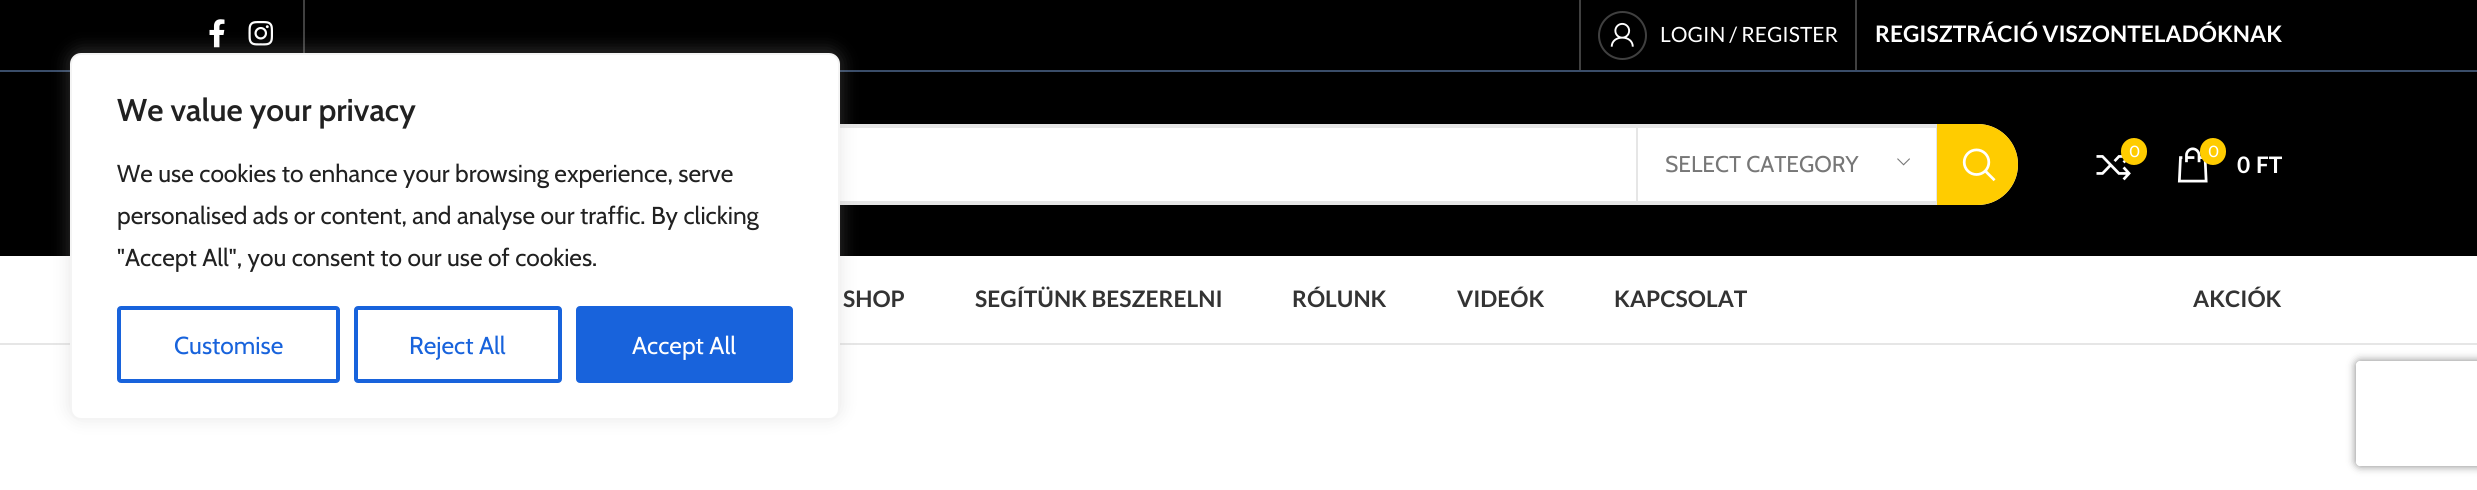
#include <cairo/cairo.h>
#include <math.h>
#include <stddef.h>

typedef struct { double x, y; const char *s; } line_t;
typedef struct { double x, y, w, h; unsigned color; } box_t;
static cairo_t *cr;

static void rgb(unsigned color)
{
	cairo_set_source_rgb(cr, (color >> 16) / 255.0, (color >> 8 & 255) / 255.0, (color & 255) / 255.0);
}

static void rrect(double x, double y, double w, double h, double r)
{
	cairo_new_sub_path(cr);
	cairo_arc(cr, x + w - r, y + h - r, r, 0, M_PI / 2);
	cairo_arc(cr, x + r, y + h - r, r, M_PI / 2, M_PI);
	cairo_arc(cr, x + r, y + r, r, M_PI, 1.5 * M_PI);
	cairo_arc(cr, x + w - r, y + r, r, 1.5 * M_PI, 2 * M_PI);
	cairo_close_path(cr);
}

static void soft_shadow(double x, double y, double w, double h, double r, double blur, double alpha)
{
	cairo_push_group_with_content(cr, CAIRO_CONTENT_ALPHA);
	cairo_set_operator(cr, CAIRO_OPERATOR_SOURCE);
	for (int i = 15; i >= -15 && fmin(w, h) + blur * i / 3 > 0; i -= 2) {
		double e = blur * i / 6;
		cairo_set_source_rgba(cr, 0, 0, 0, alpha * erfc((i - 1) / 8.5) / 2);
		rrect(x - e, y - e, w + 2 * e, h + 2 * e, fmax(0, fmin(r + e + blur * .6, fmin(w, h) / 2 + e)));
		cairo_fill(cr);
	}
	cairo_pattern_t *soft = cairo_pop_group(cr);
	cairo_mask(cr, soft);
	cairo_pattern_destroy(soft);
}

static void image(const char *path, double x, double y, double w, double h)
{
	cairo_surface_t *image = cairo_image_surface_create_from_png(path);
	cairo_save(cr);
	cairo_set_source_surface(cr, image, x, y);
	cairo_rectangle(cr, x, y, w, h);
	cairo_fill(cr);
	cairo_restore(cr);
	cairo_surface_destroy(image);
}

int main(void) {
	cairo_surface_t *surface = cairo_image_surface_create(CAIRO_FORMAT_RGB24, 2477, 490);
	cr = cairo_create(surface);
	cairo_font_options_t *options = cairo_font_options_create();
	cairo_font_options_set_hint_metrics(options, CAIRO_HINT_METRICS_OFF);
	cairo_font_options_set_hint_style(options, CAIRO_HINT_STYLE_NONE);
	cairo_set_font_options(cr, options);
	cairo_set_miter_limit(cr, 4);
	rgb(0xffffff);
	cairo_paint(cr);
	rgb(0x000000);
	cairo_rectangle(cr, 0, 0, 2477, 70);
	cairo_fill(cr);
	rgb(0x3a4d69);
	cairo_rectangle(cr, 0, 70, 2477, 2);
	cairo_fill(cr);
	image("img/1.png", 209, 19, 16, 29);
	image("img/2.png", 248, 21, 25, 25);
	rgb(0x404040);
	cairo_rectangle(cr, 303, 0, 2, 53);
	cairo_fill(cr);
	rgb(0x000000);
	cairo_rectangle(cr, 0, 72, 2477, 184);
	cairo_fill(cr);
	rgb(0xffffff);
	rrect(516, 124, 1502, 81, 40.5);
	cairo_fill(cr);
	rrect(518, 126, 1498, 77, 38.5);
	cairo_set_source_rgba(cr, 0, 0, 0, 0.1);
	cairo_set_line_width(cr, 4);
	cairo_stroke(cr);
	rgb(0xe6e6e6);
	cairo_rectangle(cr, 0, 343, 2477, 2);
	cairo_fill(cr);
	rgb(0xacabab);
	soft_shadow(70, 51, 770, 367, 11, 9, 0.3);
	rgb(0xffffff);
	rrect(71, 54, 768, 365, 10);
	cairo_fill_preserve(cr);
	rgb(0xf4f4f4);
	cairo_set_line_width(cr, 2);
	cairo_stroke(cr);
	rrect(119, 308, 219, 73, 2);
	rgb(0x1863dc);
	cairo_set_line_width(cr, 4);
	cairo_stroke(cr);
	rrect(356, 308, 204, 73, 2);
	cairo_stroke(cr);
	rrect(578, 308, 213, 73, 2);
	cairo_fill_preserve(cr);
	cairo_stroke(cr);
	rgb(0x404040);
	cairo_rectangle(cr, 1579, 0, 2, 70);
	cairo_fill(cr);
	cairo_arc(cr, 1622.5, 35.5, 23.5, 0, 2 * M_PI);
	cairo_set_line_width(cr, 2);
	cairo_stroke(cr);
	image("img/3.png", 1610, 22, 24, 25);
	{
		static const box_t items[] = {
			{1855, 0, 2, 70, 0x404040},
			{1936, 128, 1, 73, 0xe6e6e6},
			{1636, 128, 2, 73, 0xe6e6e6},
		};
		for (size_t i = 0; i < sizeof items / sizeof *items; i++) {
			rgb(items[i].color);
			cairo_rectangle(cr, items[i].x, items[i].y, items[i].w, items[i].h);
			cairo_fill(cr);
		}
	}
	image("img/4.png", 1897, 158, 13, 8);
	rgb(0xffcc00);
	cairo_new_path(cr);
	cairo_move_to(cr, 1937, 124);
	cairo_line_to(cr, 1977.5, 124);
	cairo_curve_to(cr, 2000, 124, 2018, 142, 2018, 164.5);
	cairo_curve_to(cr, 2018, 187, 2000, 205, 1977.5, 205);
	cairo_line_to(cr, 1937, 205);
	cairo_close_path(cr);
	cairo_fill(cr);
	image("img/5.png", 1962, 148, 34, 34);
	image("img/6.png", 2096, 155, 35, 26);
	rrect(2121, 138, 26, 27, 13);
	cairo_fill(cr);
	image("img/7.png", 2177, 147, 31, 36);
	rrect(2200, 138, 26, 27, 13);
	cairo_fill(cr);
	cairo_save(cr);
	cairo_set_fill_rule(cr, CAIRO_FILL_RULE_EVEN_ODD);
	cairo_new_path(cr);
	cairo_move_to(cr, 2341, 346);
	cairo_line_to(cr, 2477, 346);
	cairo_line_to(cr, 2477, 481);
	cairo_line_to(cr, 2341, 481);
	cairo_close_path(cr);
	cairo_move_to(cr, 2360, 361);
	cairo_line_to(cr, 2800, 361);
	cairo_curve_to(cr, 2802, 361, 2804, 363, 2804, 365);
	cairo_line_to(cr, 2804, 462);
	cairo_curve_to(cr, 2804, 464, 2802, 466, 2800, 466);
	cairo_line_to(cr, 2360, 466);
	cairo_curve_to(cr, 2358, 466, 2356, 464, 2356, 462);
	cairo_line_to(cr, 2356, 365);
	cairo_curve_to(cr, 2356, 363, 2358, 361, 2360, 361);
	cairo_close_path(cr);
	cairo_clip(cr);
	rgb(0x808080);
	soft_shadow(2356, 361, 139, 105, 4, 4.5, 1);
	cairo_restore(cr);
	cairo_select_font_face(cr, "Cabin SemiBold", CAIRO_FONT_SLANT_NORMAL, CAIRO_FONT_WEIGHT_NORMAL);
	cairo_set_font_size(cr, 31.5);
	rgb(0x212121);
	cairo_move_to(cr, 117, 121);
	cairo_show_text(cr, "We value your privacy");
	cairo_select_font_face(cr, "Cabin", CAIRO_FONT_SLANT_NORMAL, CAIRO_FONT_WEIGHT_NORMAL);
	cairo_set_font_size(cr, 24.5);
	{
		static const line_t items[] = {
			{117, 182, "We use cookies to enhance your browsing experience, serve"},
			{117, 224, "personalised ads or content, and analyse our traffic. By clicking"},
			{117, 266, "\"Accept All\", you consent to our use of cookies."},
		};
		for (size_t i = 0; i < sizeof items / sizeof *items; i++) {
			cairo_move_to(cr, items[i].x, items[i].y);
			cairo_show_text(cr, items[i].s);
		}
	}
	rgb(0x1863dc);
	cairo_move_to(cr, 174, 354);
	cairo_show_text(cr, "Customise");
	cairo_move_to(cr, 409, 354);
	cairo_show_text(cr, "Reject All");
	rgb(0xffffff);
	cairo_move_to(cr, 632, 354);
	cairo_show_text(cr, "Accept All");
	cairo_select_font_face(cr, "Lato", CAIRO_FONT_SLANT_NORMAL, CAIRO_FONT_WEIGHT_NORMAL);
	cairo_set_font_size(cr, 21);
	cairo_move_to(cr, 1660, 42);
	cairo_show_text(cr, "LOGIN / REGISTER");
	cairo_select_font_face(cr, "Lato", CAIRO_FONT_SLANT_NORMAL, CAIRO_FONT_WEIGHT_BOLD);
	cairo_set_font_size(cr, 22.75);
	cairo_move_to(cr, 1875, 42);
	cairo_show_text(cr, "REGISZTRÁCIÓ VISZONTELADÓKNAK");
	cairo_select_font_face(cr, "Cabin", CAIRO_FONT_SLANT_NORMAL, CAIRO_FONT_WEIGHT_NORMAL);
	rgb(0x777777);
	cairo_move_to(cr, 1665, 172);
	cairo_show_text(cr, "SELECT CATEGORY");
	cairo_set_font_size(cr, 16);
	rgb(0xffffff);
	cairo_move_to(cr, 2129, 157);
	cairo_show_text(cr, "0");
	cairo_move_to(cr, 2208, 157);
	cairo_show_text(cr, "0");
	cairo_select_font_face(cr, "Lato", CAIRO_FONT_SLANT_NORMAL, CAIRO_FONT_WEIGHT_BOLD);
	cairo_set_font_size(cr, 22.75);
	cairo_move_to(cr, 2237, 173);
	cairo_show_text(cr, "0");
	cairo_move_to(cr, 2256, 173);
	cairo_show_text(cr, "FT");
	rgb(0x333333);
	{
		static const line_t items[] = {
			{843, 307, "SHOP"},
			{975, 307, "SEGÍTÜNK BESZERELNI"},
			{1292, 307, "RÓLUNK"},
			{1457, 307, "VIDEÓK"},
			{1614, 307, "KAPCSOLAT"},
			{2193, 307, "AKCIÓK"},
		};
		for (size_t i = 0; i < sizeof items / sizeof *items; i++) {
			cairo_move_to(cr, items[i].x, items[i].y);
			cairo_show_text(cr, items[i].s);
		}
	}
	cairo_surface_write_to_png(surface, "page.png");
	cairo_font_options_destroy(options);
	cairo_destroy(cr);
	cairo_surface_destroy(surface);
	return 0;
}
